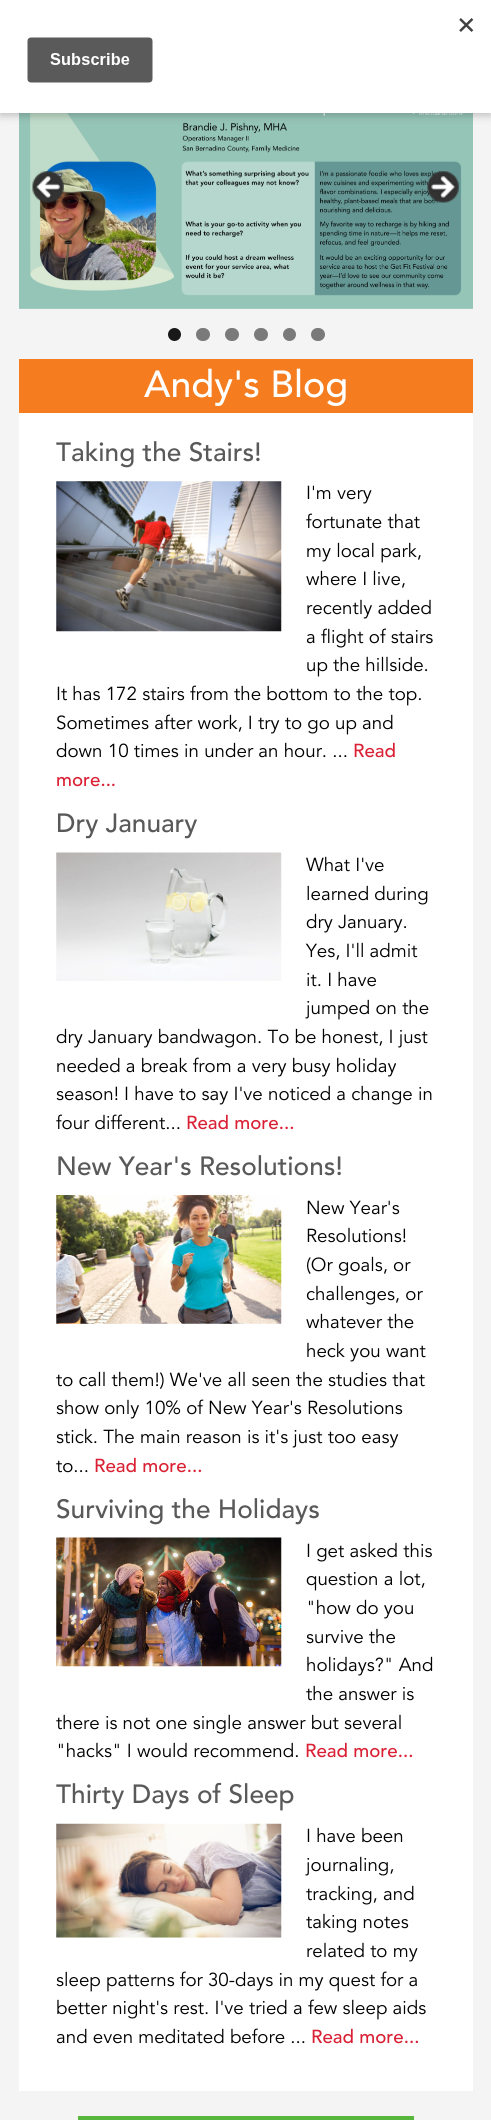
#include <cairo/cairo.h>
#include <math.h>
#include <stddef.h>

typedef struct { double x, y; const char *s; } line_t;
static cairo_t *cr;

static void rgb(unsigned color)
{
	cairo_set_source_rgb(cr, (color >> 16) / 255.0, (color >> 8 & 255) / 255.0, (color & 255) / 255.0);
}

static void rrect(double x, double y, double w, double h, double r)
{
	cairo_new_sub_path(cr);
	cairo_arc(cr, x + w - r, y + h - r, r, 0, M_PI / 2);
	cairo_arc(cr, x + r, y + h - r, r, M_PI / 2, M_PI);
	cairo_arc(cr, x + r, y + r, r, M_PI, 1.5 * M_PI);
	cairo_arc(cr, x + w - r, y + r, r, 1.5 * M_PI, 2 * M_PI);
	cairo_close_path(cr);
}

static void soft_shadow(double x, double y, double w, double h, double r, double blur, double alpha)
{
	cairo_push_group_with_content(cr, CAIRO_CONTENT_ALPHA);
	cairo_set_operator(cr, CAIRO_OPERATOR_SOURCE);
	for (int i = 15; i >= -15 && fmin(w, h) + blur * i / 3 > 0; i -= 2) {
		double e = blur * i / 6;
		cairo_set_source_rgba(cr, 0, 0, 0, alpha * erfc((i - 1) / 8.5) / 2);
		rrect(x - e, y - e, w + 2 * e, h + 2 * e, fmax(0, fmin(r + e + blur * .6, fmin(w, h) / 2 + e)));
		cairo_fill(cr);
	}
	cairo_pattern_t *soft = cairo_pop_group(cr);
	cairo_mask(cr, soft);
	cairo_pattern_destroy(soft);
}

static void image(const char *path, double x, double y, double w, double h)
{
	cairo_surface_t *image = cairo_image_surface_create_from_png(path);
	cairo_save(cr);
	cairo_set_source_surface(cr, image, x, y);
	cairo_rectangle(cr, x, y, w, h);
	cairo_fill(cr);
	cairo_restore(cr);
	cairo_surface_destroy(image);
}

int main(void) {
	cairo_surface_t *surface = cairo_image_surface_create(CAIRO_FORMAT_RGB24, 491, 2120);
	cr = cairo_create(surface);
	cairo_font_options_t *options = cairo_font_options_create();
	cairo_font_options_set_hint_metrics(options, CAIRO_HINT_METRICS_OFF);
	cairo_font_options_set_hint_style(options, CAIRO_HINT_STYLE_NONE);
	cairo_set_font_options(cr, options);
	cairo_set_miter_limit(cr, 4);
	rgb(0xf4f4f4);
	cairo_paint(cr);
	image("img/2.png", 19, 113, 454, 196);
	rgb(0x000000);
	soft_shadow(0, 4, 491, 112, 0, 4, 0.2);
	rgb(0xffffff);
	cairo_rectangle(cr, 0, 0, 491, 113);
	cairo_fill(cr);
	image("img/1.png", 27, 18, 447, 65);
	image("img/3.png", 32, 171, 32, 32);
	image("img/4.png", 427, 171, 32, 32);
	rgb(0x181818);
	cairo_arc(cr, 174.5, 334.5, 6.5, 0, 2 * M_PI);
	cairo_fill(cr);
	rgb(0x7a7a7a);
	rrect(196, 328, 14, 13, 6.5);
	cairo_fill(cr);
	rrect(225, 328, 14, 13, 6.5);
	cairo_fill(cr);
	rrect(254, 328, 14, 13, 6.5);
	cairo_fill(cr);
	cairo_arc(cr, 289.5, 334.5, 6.5, 0, 2 * M_PI);
	cairo_fill(cr);
	rrect(311, 328, 14, 13, 6.5);
	cairo_fill(cr);
	rgb(0xf57d20);
	cairo_rectangle(cr, 19, 359, 454, 54);
	cairo_fill(cr);
	rgb(0xffffff);
	cairo_rectangle(cr, 19, 413, 454, 1678);
	cairo_fill(cr);
	image("img/5.png", 56, 481, 226, 151);
	image("img/6.png", 56, 852, 226, 129);
	image("img/7.png", 56, 1195, 226, 129);
	image("img/8.png", 56, 1537, 226, 130);
	image("img/9.png", 56, 1823, 226, 115);
	rgb(0x57b73c);
	cairo_rectangle(cr, 78, 2116, 336, 4);
	cairo_fill(cr);
	cairo_select_font_face(cr, "Avenir Medium", CAIRO_FONT_SLANT_NORMAL, CAIRO_FONT_WEIGHT_NORMAL);
	cairo_set_font_size(cr, 37.5);
	rgb(0xffffff);
	cairo_move_to(cr, 144, 397);
	cairo_show_text(cr, "Andy's Blog");
	cairo_set_font_size(cr, 26.25);
	rgb(0x595959);
	cairo_move_to(cr, 56, 461);
	cairo_show_text(cr, "Taking the Stairs!");
	cairo_select_font_face(cr, "Avenir", CAIRO_FONT_SLANT_NORMAL, CAIRO_FONT_WEIGHT_NORMAL);
	cairo_set_font_size(cr, 18.75);
	rgb(0x000000);
	{
		static const line_t items[] = {
			{306, 499, "I'm very"},
			{306, 528, "fortunate that"},
			{306, 557, "my local park,"},
			{306, 585, "where I live,"},
			{306, 614, "recently added"},
			{306, 643, "a flight of stairs"},
			{306, 671, "up the hillside."},
			{56, 700, "It has 172 stairs from the bottom to the top."},
			{56, 729, "Sometimes after work, I try to go up and"},
			{56, 757, "down 10 times in under an hour. ..."},
		};
		for (size_t i = 0; i < sizeof items / sizeof *items; i++) {
			cairo_move_to(cr, items[i].x, items[i].y);
			cairo_show_text(cr, items[i].s);
		}
	}
	cairo_select_font_face(cr, "Avenir Medium", CAIRO_FONT_SLANT_NORMAL, CAIRO_FONT_WEIGHT_NORMAL);
	rgb(0xda2034);
	cairo_move_to(cr, 353, 757);
	cairo_show_text(cr, "Read");
	cairo_move_to(cr, 56, 786);
	cairo_show_text(cr, "more...");
	cairo_set_font_size(cr, 26.25);
	rgb(0x595959);
	cairo_move_to(cr, 56, 832);
	cairo_show_text(cr, "Dry January");
	cairo_select_font_face(cr, "Avenir", CAIRO_FONT_SLANT_NORMAL, CAIRO_FONT_WEIGHT_NORMAL);
	cairo_set_font_size(cr, 18.75);
	rgb(0x000000);
	{
		static const line_t items[] = {
			{306, 871, "What I've"},
			{306, 900, "learned during"},
			{306, 928, "dry January."},
			{306, 957, "Yes, I'll admit"},
			{306, 986, "it. I have"},
			{306, 1014, "jumped on the"},
			{56, 1043, "dry January bandwagon. To be honest, I just"},
			{56, 1072, "needed a break from a very busy holiday"},
			{56, 1100, "season! I have to say I've noticed a change in"},
			{56, 1129, "four different..."},
		};
		for (size_t i = 0; i < sizeof items / sizeof *items; i++) {
			cairo_move_to(cr, items[i].x, items[i].y);
			cairo_show_text(cr, items[i].s);
		}
	}
	cairo_select_font_face(cr, "Avenir Medium", CAIRO_FONT_SLANT_NORMAL, CAIRO_FONT_WEIGHT_NORMAL);
	rgb(0xda2034);
	cairo_move_to(cr, 186, 1129);
	cairo_show_text(cr, "Read more...");
	cairo_set_font_size(cr, 26.25);
	rgb(0x595959);
	cairo_move_to(cr, 56, 1175);
	cairo_show_text(cr, "New Year's Resolutions!");
	cairo_select_font_face(cr, "Avenir", CAIRO_FONT_SLANT_NORMAL, CAIRO_FONT_WEIGHT_NORMAL);
	cairo_set_font_size(cr, 18.75);
	rgb(0x000000);
	{
		static const line_t items[] = {
			{306, 1214, "New Year's"},
			{306, 1242, "Resolutions!"},
			{306, 1271, "(Or goals, or"},
			{306, 1300, "challenges, or"},
			{306, 1328, "whatever the"},
			{306, 1357, "heck you want"},
			{56, 1386, "to call them!) We've all seen the studies that"},
			{56, 1414, "show only 10% of New Year's Resolutions"},
			{56, 1443, "stick. The main reason is it's just too easy"},
			{56, 1472, "to..."},
		};
		for (size_t i = 0; i < sizeof items / sizeof *items; i++) {
			cairo_move_to(cr, items[i].x, items[i].y);
			cairo_show_text(cr, items[i].s);
		}
	}
	cairo_select_font_face(cr, "Avenir Medium", CAIRO_FONT_SLANT_NORMAL, CAIRO_FONT_WEIGHT_NORMAL);
	rgb(0xda2034);
	cairo_move_to(cr, 94, 1472);
	cairo_show_text(cr, "Read more...");
	cairo_set_font_size(cr, 26.25);
	rgb(0x595959);
	cairo_move_to(cr, 56, 1518);
	cairo_show_text(cr, "Surviving the Holidays");
	cairo_select_font_face(cr, "Avenir", CAIRO_FONT_SLANT_NORMAL, CAIRO_FONT_WEIGHT_NORMAL);
	cairo_set_font_size(cr, 18.75);
	rgb(0x000000);
	{
		static const line_t items[] = {
			{306, 1557, "I get asked this"},
			{306, 1585, "question a lot,"},
			{306, 1614, "\"how do you"},
			{306, 1643, "survive the"},
			{306, 1671, "holidays?\" And"},
			{306, 1700, "the answer is"},
			{56, 1729, "there is not one single answer but several"},
			{56, 1757, "\"hacks\" I would recommend."},
		};
		for (size_t i = 0; i < sizeof items / sizeof *items; i++) {
			cairo_move_to(cr, items[i].x, items[i].y);
			cairo_show_text(cr, items[i].s);
		}
	}
	cairo_select_font_face(cr, "Avenir Medium", CAIRO_FONT_SLANT_NORMAL, CAIRO_FONT_WEIGHT_NORMAL);
	rgb(0xda2034);
	cairo_move_to(cr, 305, 1757);
	cairo_show_text(cr, "Read more...");
	cairo_set_font_size(cr, 26.25);
	rgb(0x595959);
	cairo_move_to(cr, 56, 1803);
	cairo_show_text(cr, "Thirty Days of Sleep");
	cairo_select_font_face(cr, "Avenir", CAIRO_FONT_SLANT_NORMAL, CAIRO_FONT_WEIGHT_NORMAL);
	cairo_set_font_size(cr, 18.75);
	rgb(0x000000);
	{
		static const line_t items[] = {
			{306, 1842, "I have been"},
			{306, 1871, "journaling,"},
			{306, 1900, "tracking, and"},
			{306, 1928, "taking notes"},
			{306, 1957, "related to my"},
			{56, 1986, "sleep patterns for 30-days in my quest for a"},
			{56, 2014, "better night's rest. I've tried a few sleep aids"},
			{56, 2043, "and even meditated before ..."},
		};
		for (size_t i = 0; i < sizeof items / sizeof *items; i++) {
			cairo_move_to(cr, items[i].x, items[i].y);
			cairo_show_text(cr, items[i].s);
		}
	}
	cairo_select_font_face(cr, "Avenir Medium", CAIRO_FONT_SLANT_NORMAL, CAIRO_FONT_WEIGHT_NORMAL);
	rgb(0xda2034);
	cairo_move_to(cr, 311, 2043);
	cairo_show_text(cr, "Read more...");
	cairo_surface_write_to_png(surface, "page.png");
	cairo_font_options_destroy(options);
	cairo_destroy(cr);
	cairo_surface_destroy(surface);
	return 0;
}
